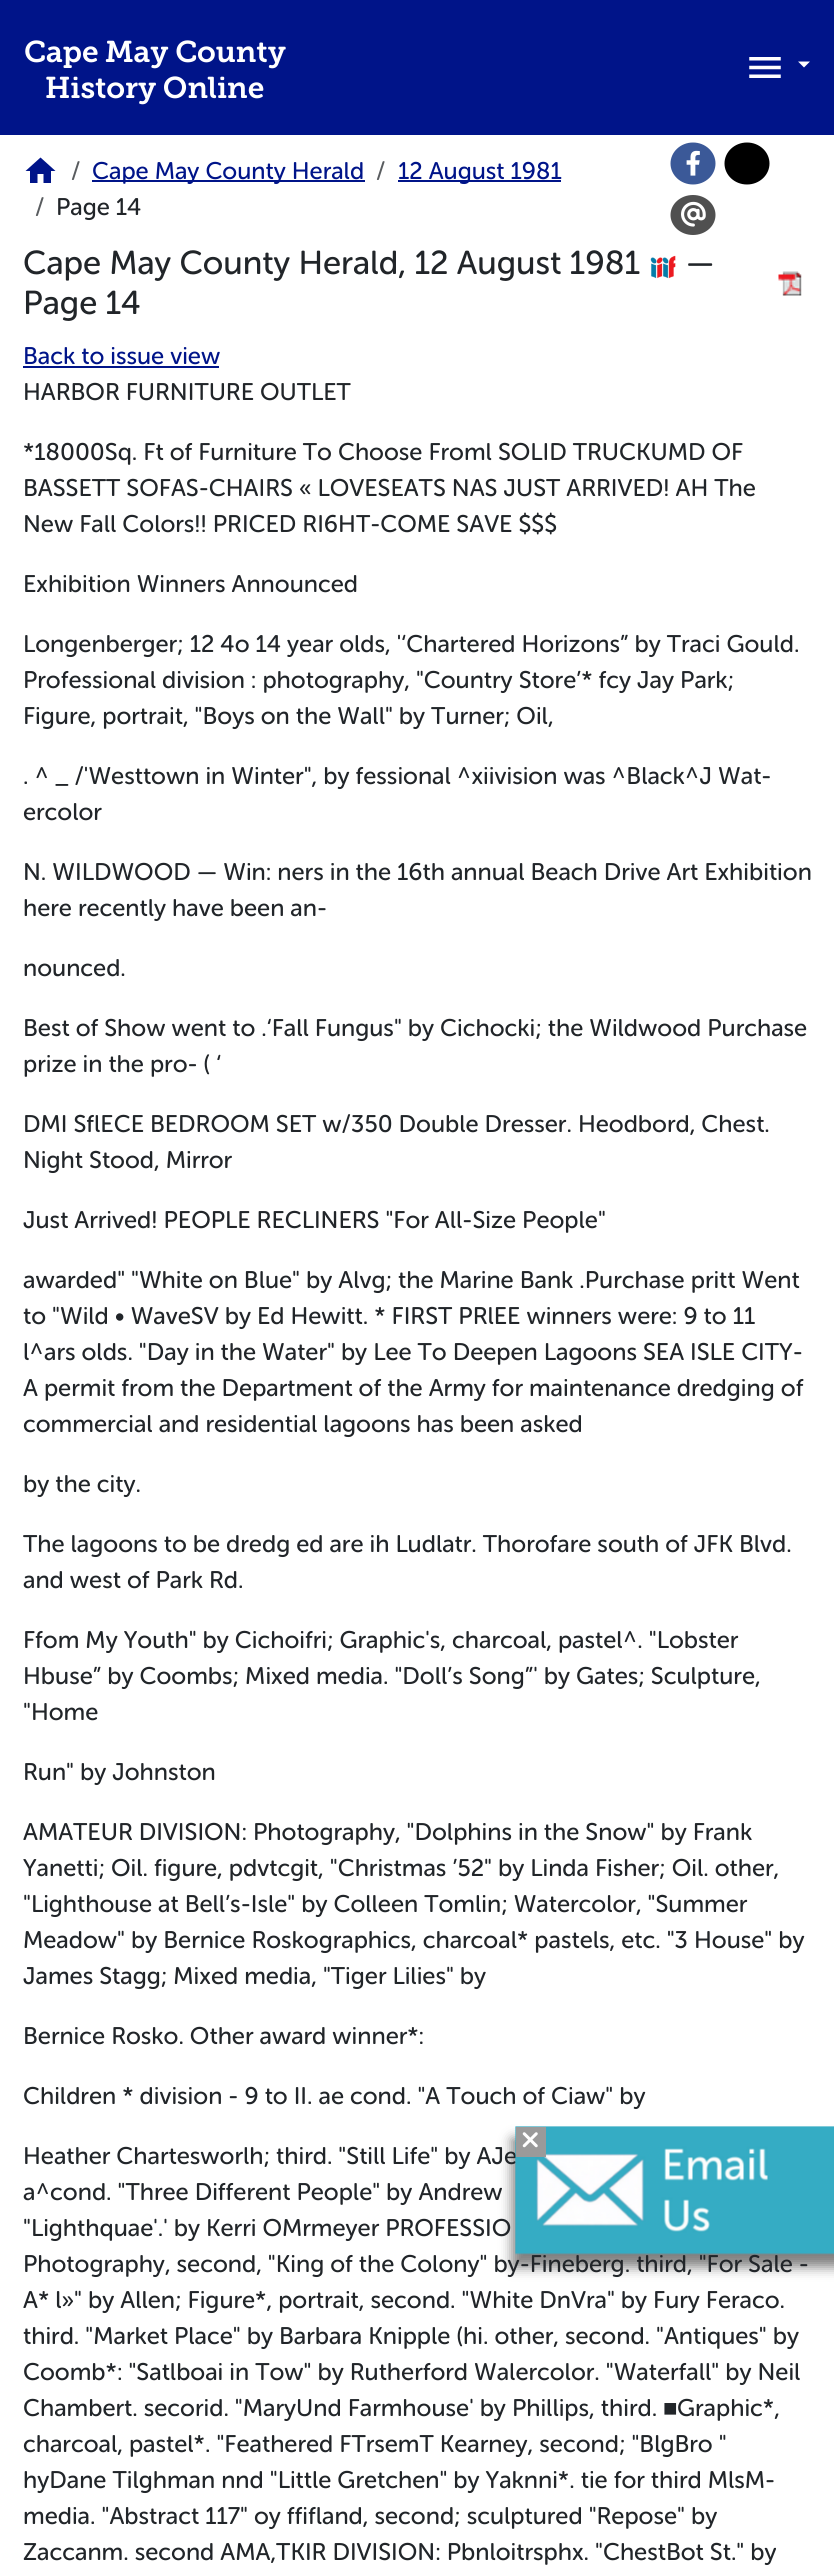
#include <cairo/cairo.h>
#include <math.h>
#include <stddef.h>

typedef struct { double x, y; const char *s; } line_t;
static cairo_t *cr;

static void rgb(unsigned color)
{
	cairo_set_source_rgb(cr, (color >> 16) / 255.0, (color >> 8 & 255) / 255.0, (color & 255) / 255.0);
}

static void rrect(double x, double y, double w, double h, double r)
{
	cairo_new_sub_path(cr);
	cairo_arc(cr, x + w - r, y + h - r, r, 0, M_PI / 2);
	cairo_arc(cr, x + r, y + h - r, r, M_PI / 2, M_PI);
	cairo_arc(cr, x + r, y + r, r, M_PI, 1.5 * M_PI);
	cairo_arc(cr, x + w - r, y + r, r, 1.5 * M_PI, 2 * M_PI);
	cairo_close_path(cr);
}

static void soft_shadow(double x, double y, double w, double h, double r, double blur, double alpha)
{
	cairo_push_group_with_content(cr, CAIRO_CONTENT_ALPHA);
	cairo_set_operator(cr, CAIRO_OPERATOR_SOURCE);
	for (int i = 15; i >= -15 && fmin(w, h) + blur * i / 3 > 0; i -= 2) {
		double e = blur * i / 6;
		cairo_set_source_rgba(cr, 0, 0, 0, alpha * erfc((i - 1) / 8.5) / 2);
		rrect(x - e, y - e, w + 2 * e, h + 2 * e, fmax(0, fmin(r + e + blur * .6, fmin(w, h) / 2 + e)));
		cairo_fill(cr);
	}
	cairo_pattern_t *soft = cairo_pop_group(cr);
	cairo_mask(cr, soft);
	cairo_pattern_destroy(soft);
}

static void image(const char *path, double x, double y, double w, double h)
{
	cairo_surface_t *image = cairo_image_surface_create_from_png(path);
	cairo_save(cr);
	cairo_set_source_surface(cr, image, x, y);
	cairo_rectangle(cr, x, y, w, h);
	cairo_fill(cr);
	cairo_restore(cr);
	cairo_surface_destroy(image);
}

int main(void) {
	cairo_surface_t *surface = cairo_image_surface_create(CAIRO_FORMAT_RGB24, 834, 2576);
	cr = cairo_create(surface);
	cairo_font_options_t *options = cairo_font_options_create();
	cairo_font_options_set_hint_metrics(options, CAIRO_HINT_METRICS_OFF);
	cairo_font_options_set_hint_style(options, CAIRO_HINT_STYLE_NONE);
	cairo_set_font_options(cr, options);
	cairo_set_miter_limit(cr, 4);
	rgb(0xffffff);
	cairo_paint(cr);
	rgb(0x001489);
	cairo_rectangle(cr, 0, 0, 834, 135);
	cairo_fill(cr);
	image("img/1.png", 749, 57, 32, 21);
	rgb(0xffffff);
	cairo_new_path(cr);
	cairo_move_to(cr, 798, 61.5);
	cairo_line_to(cr, 810, 61.5);
	cairo_line_to(cr, 804, 67.5);
	cairo_close_path(cr);
	cairo_fill(cr);
	rgb(0x001489);
	cairo_new_path(cr);
	cairo_move_to(cr, 37.5, 183);
	cairo_line_to(cr, 37.5, 174);
	cairo_line_to(cr, 43.5, 174);
	cairo_line_to(cr, 43.5, 183);
	cairo_line_to(cr, 51, 183);
	cairo_line_to(cr, 51, 171);
	cairo_line_to(cr, 55.5, 171);
	cairo_line_to(cr, 40.5, 157.5);
	cairo_line_to(cr, 25.5, 171);
	cairo_line_to(cr, 30, 171);
	cairo_line_to(cr, 30, 183);
	cairo_close_path(cr);
	cairo_fill(cr);
	cairo_rectangle(cr, 92, 180, 273, 2);
	cairo_fill(cr);
	cairo_rectangle(cr, 398, 180, 163, 2);
	cairo_fill(cr);
	rgb(0x3b5998);
	cairo_new_path(cr);
	cairo_move_to(cr, 693, 142.5);
	cairo_curve_to(cr, 705.5, 142.5, 715.5, 152, 715.5, 163.5);
	cairo_curve_to(cr, 715.5, 175, 705.5, 184.5, 693, 184.5);
	cairo_curve_to(cr, 680.5, 184.5, 670.5, 175, 670.5, 163.5);
	cairo_curve_to(cr, 670.5, 152, 680.5, 142.5, 693, 142.5);
	cairo_close_path(cr);
	cairo_fill(cr);
	image("img/2.png", 686, 150, 14, 26);
	rgb(0x000000);
	cairo_new_path(cr);
	cairo_move_to(cr, 747, 142.5);
	cairo_curve_to(cr, 759.5, 142.5, 769.5, 152, 769.5, 163.5);
	cairo_curve_to(cr, 769.5, 175, 759.5, 184.5, 747, 184.5);
	cairo_curve_to(cr, 734.5, 184.5, 724.5, 175, 724.5, 163.5);
	cairo_curve_to(cr, 724.5, 152, 734.5, 142.5, 747, 142.5);
	cairo_close_path(cr);
	cairo_fill(cr);
	rgb(0x505050);
	cairo_new_path(cr);
	cairo_move_to(cr, 693, 195);
	cairo_curve_to(cr, 705.5, 195, 715.5, 204, 715.5, 215);
	cairo_curve_to(cr, 715.5, 226, 705.5, 235, 693, 235);
	cairo_curve_to(cr, 680.5, 235, 670.5, 226, 670.5, 215);
	cairo_curve_to(cr, 670.5, 204, 680.5, 195, 693, 195);
	cairo_close_path(cr);
	cairo_fill(cr);
	image("img/3.png", 681, 201, 25, 26);
	image("img/4.png", 650, 255, 26, 24);
	image("img/5.png", 778, 271, 24, 25);
	rgb(0x001489);
	cairo_rectangle(cr, 23, 366, 196, 2);
	cairo_fill(cr);
	rgb(0x2b2b2b);
	soft_shadow(512, 2139, 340, 128, 0, 6, 0.6);
	cairo_select_font_face(cr, "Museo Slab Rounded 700 SemiBold", CAIRO_FONT_SLANT_NORMAL, CAIRO_FONT_WEIGHT_NORMAL);
	cairo_set_font_size(cr, 30);
	rgb(0xffffff);
	cairo_move_to(cr, 24, 62);
	cairo_show_text(cr, "Cape May County");
	cairo_move_to(cr, 45, 98);
	cairo_show_text(cr, "History Online");
	cairo_select_font_face(cr, "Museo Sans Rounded", CAIRO_FONT_SLANT_NORMAL, CAIRO_FONT_WEIGHT_NORMAL);
	cairo_set_font_size(cr, 24);
	rgb(0x595c5f);
	cairo_move_to(cr, 71, 179);
	cairo_show_text(cr, "/");
	rgb(0x001489);
	cairo_move_to(cr, 92, 179);
	cairo_show_text(cr, "Cape May County Herald");
	rgb(0x595c5f);
	cairo_move_to(cr, 376, 179);
	cairo_show_text(cr, "/");
	rgb(0x001489);
	cairo_move_to(cr, 398, 179);
	cairo_show_text(cr, "12 August 1981");
	rgb(0x595c5f);
	cairo_move_to(cr, 35, 215);
	cairo_show_text(cr, "/");
	rgb(0x212529);
	cairo_move_to(cr, 56, 215);
	cairo_show_text(cr, "Page 14");
	cairo_set_font_size(cr, 33.1);
	{
		static const line_t items[] = {
			{23, 274, "Cape May County Herald, 12 August 1981"},
			{686, 274, "—"},
			{23, 314, "Page 14"},
		};
		for (size_t i = 0; i < sizeof items / sizeof *items; i++) {
			cairo_move_to(cr, items[i].x, items[i].y);
			cairo_show_text(cr, items[i].s);
		}
	}
	cairo_set_font_size(cr, 24);
	rgb(0x001489);
	cairo_move_to(cr, 23, 364);
	cairo_show_text(cr, "Back to issue view");
	rgb(0x212529);
	{
		static const line_t items[] = {
			{23, 400, "HARBOR FURNITURE OUTLET"},
			{23, 460, "*18000Sq. Ft of Furniture To Choose Froml SOLID TRUCKUMD OF"},
			{23, 496, "BASSETT SOFAS-CHAIRS « LOVESEATS NAS JUST ARRIVED! AH The"},
			{23, 532, "New Fall Colors!! PRICED RI6HT-COME SAVE $$$"},
			{23, 592, "Exhibition Winners Announced"},
			{23, 652, "Longenberger; 12 4o 14 year olds, '‘Chartered Horizons” by Traci Gould."},
			{23, 688, "Professional division : photography, \"Country Store’* fcy Jay Park;"},
			{23, 724, "Figure, portrait, \"Boys on the Wall\" by Turner; Oil,"},
			{23, 784, ". ^ _ /'Westtown in Winter\", by fessional ^xiivision was ^Black^J Wat-"},
			{23, 820, "ercolor"},
			{23, 880, "N. WILDWOOD — Win: ners in the 16th annual Beach Drive Art Exhibition"},
			{23, 916, "here recently have been an-"},
			{23, 976, "nounced."},
			{23, 1036, "Best of Show went to .‘Fall Fungus\" by Cichocki; the Wildwood Purchase"},
			{23, 1072, "prize in the pro- ( ‘"},
			{23, 1132, "DMI SflECE BEDROOM SET w/350 Double Dresser. Heodbord, Chest."},
			{23, 1168, "Night Stood, Mirror"},
			{23, 1228, "Just Arrived! PEOPLE RECLINERS \"For All-Size People\""},
			{23, 1288, "awarded\" \"White on Blue\" by Alvg; the Marine Bank .Purchase pritt Went"},
			{23, 1324, "to \"Wild • WaveSV by Ed Hewitt. * FIRST PRlEE winners were: 9 to 11"},
			{23, 1360, "l^ars olds. \"Day in the Water\" by Lee To Deepen Lagoons SEA ISLE CITY-"},
			{23, 1396, "A permit from the Department of the Army for maintenance dredging of"},
			{23, 1432, "commercial and residential lagoons has been asked"},
			{23, 1492, "by the city."},
			{23, 1552, "The lagoons to be dredg ed are ih Ludlatr. Thorofare south of JFK Blvd."},
			{23, 1588, "and west of Park Rd."},
			{23, 1648, "Ffom My Youth\" by Cichoifri; Graphic's, charcoal, pastel^. \"Lobster"},
			{23, 1684, "Hbuse” by Coombs; Mixed media. \"Doll’s Song”' by Gates; Sculpture,"},
			{23, 1720, "\"Home"},
			{23, 1780, "Run\" by Johnston"},
			{23, 1840, "AMATEUR DIVISION: Photography, \"Dolphins in the Snow\" by Frank"},
			{23, 1876, "Yanetti; Oil. figure, pdvtcgit, \"Christmas ’52\" by Linda Fisher; Oil. other,"},
			{23, 1912, "\"Lighthouse at Bell’s-Isle\" by Colleen Tomlin; Watercolor, \"Summer"},
			{23, 1948, "Meadow\" by Bernice Roskographics, charcoal* pastels, etc. \"3 House\" by"},
			{23, 1984, "James Stagg; Mixed media, \"Tiger Lilies\" by"},
			{23, 2044, "Bernice Rosko. Other award winner*:"},
			{23, 2104, "Children * division - 9 to II. ae cond. \"A Touch of Ciaw\" by"},
			{23, 2164, "Heather Chartesworlh; third. \"Still Life\" by AJe"},
			{23, 2200, "a^cond. \"Three Different People\" by Andrew"},
			{23, 2236, "\"Lighthquae'.' by Kerri OMrmeyer PROFESSIO"},
			{23, 2272, "Photography, second, \"King of the Colony\" by-Fineberg. third, \"For Sale -"},
			{23, 2308, "A* l»\" by Allen; Figure*, portrait, second. \"White DnVra\" by Fury Feraco."},
			{23, 2344, "third. \"Market Place\" by Barbara Knipple (hi. other, second. \"Antiques\" by"},
			{23, 2380, "Coomb*: \"Satlboai in Tow\" by Rutherford Walercolor. \"Waterfall\" by Neil"},
			{23, 2416, "Chambert. secorid. \"MaryUnd Farmhouse' by Phillips, third."},
		};
		for (size_t i = 0; i < sizeof items / sizeof *items; i++) {
			cairo_move_to(cr, items[i].x, items[i].y);
			cairo_show_text(cr, items[i].s);
		}
	}
	cairo_select_font_face(cr, "Liberation Sans", CAIRO_FONT_SLANT_NORMAL, CAIRO_FONT_WEIGHT_NORMAL);
	cairo_move_to(cr, 663, 2416);
	cairo_show_text(cr, "■");
	cairo_select_font_face(cr, "Museo Sans Rounded", CAIRO_FONT_SLANT_NORMAL, CAIRO_FONT_WEIGHT_NORMAL);
	{
		static const line_t items[] = {
			{677, 2416, "Graphic*,"},
			{23, 2452, "charcoal, pastel*. \"Feathered FTrsemT Kearney, second; \"BlgBro \""},
			{23, 2488, "hyDane Tilghman nnd \"Little Gretchen\" by Yaknni*. tie for third MlsM-"},
			{23, 2524, "media. \"Abstract 117\" oy ffifland, second; sculptured \"Repose\" by"},
			{23, 2560, "Zaccanm. second AMA,TKIR DIVISION: Pbnloitrsphx. \"ChestBot St.\" by"},
		};
		for (size_t i = 0; i < sizeof items / sizeof *items; i++) {
			cairo_move_to(cr, items[i].x, items[i].y);
			cairo_show_text(cr, items[i].s);
		}
	}
	image("img/6.png", 515, 2126, 319, 129);
	rgb(0x9a9a9a);
	cairo_rectangle(cr, 516, 2127, 30, 30);
	cairo_fill(cr);
	image("img/7.png", 522, 2132, 16, 16);
	cairo_surface_write_to_png(surface, "page.png");
	cairo_font_options_destroy(options);
	cairo_destroy(cr);
	cairo_surface_destroy(surface);
	return 0;
}
